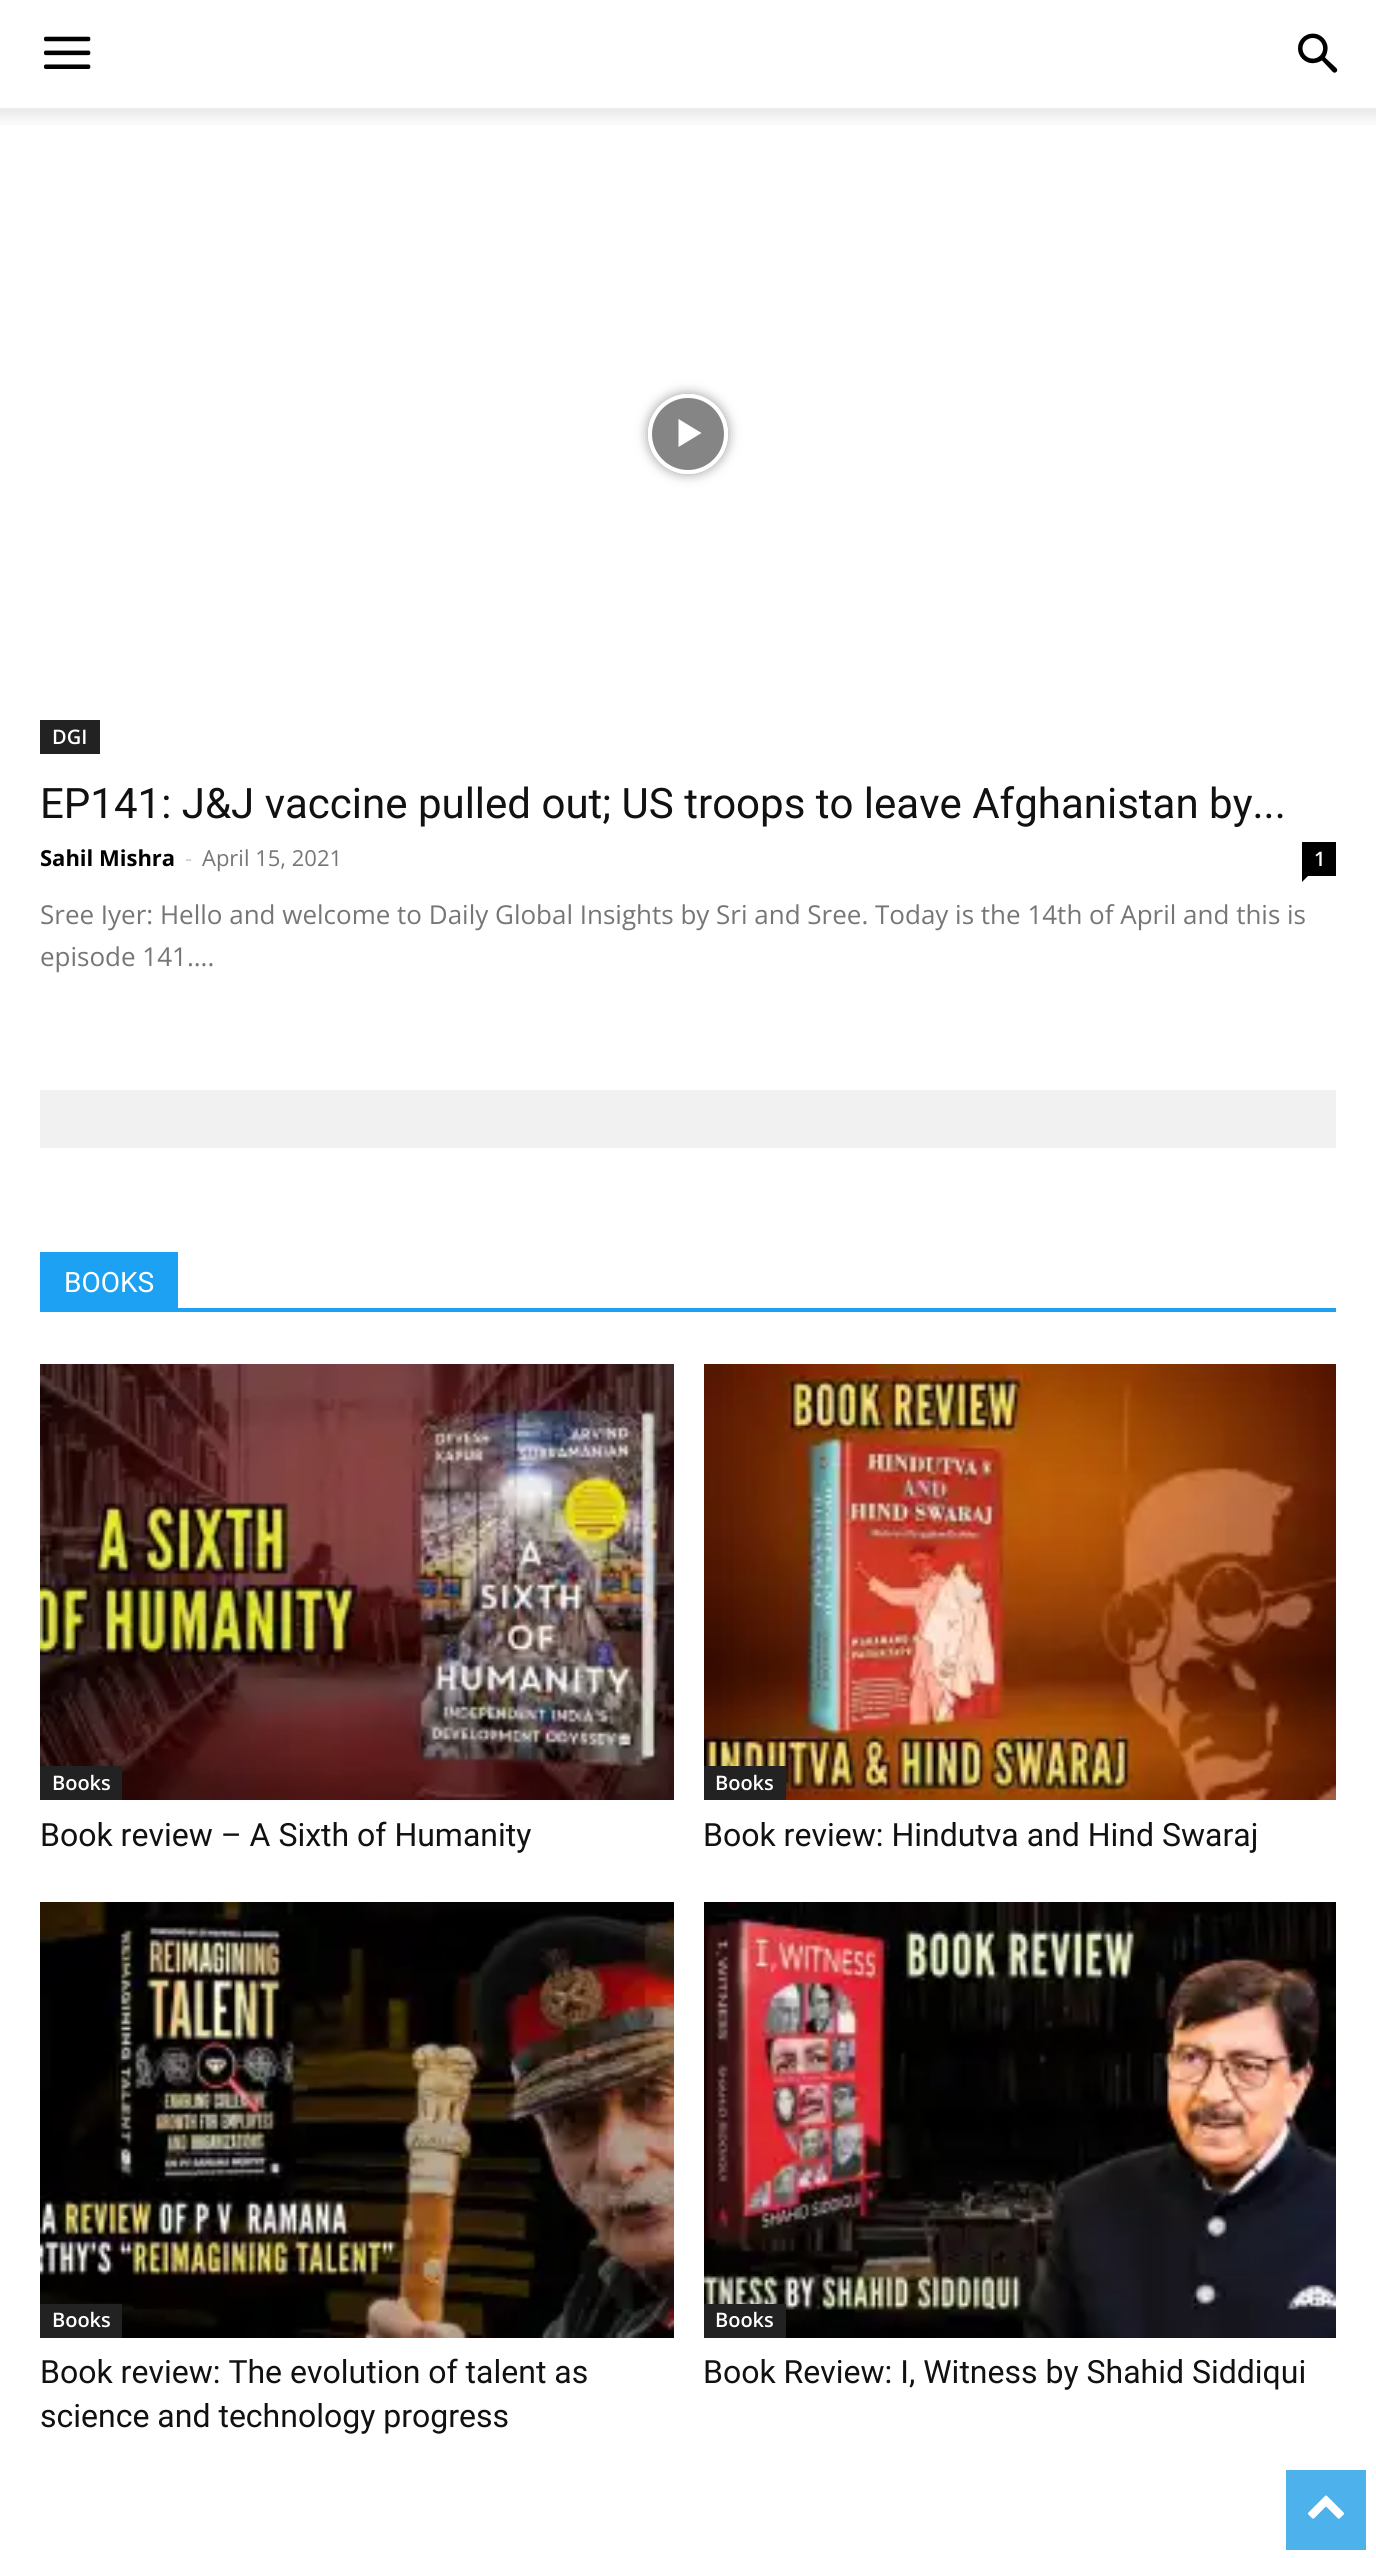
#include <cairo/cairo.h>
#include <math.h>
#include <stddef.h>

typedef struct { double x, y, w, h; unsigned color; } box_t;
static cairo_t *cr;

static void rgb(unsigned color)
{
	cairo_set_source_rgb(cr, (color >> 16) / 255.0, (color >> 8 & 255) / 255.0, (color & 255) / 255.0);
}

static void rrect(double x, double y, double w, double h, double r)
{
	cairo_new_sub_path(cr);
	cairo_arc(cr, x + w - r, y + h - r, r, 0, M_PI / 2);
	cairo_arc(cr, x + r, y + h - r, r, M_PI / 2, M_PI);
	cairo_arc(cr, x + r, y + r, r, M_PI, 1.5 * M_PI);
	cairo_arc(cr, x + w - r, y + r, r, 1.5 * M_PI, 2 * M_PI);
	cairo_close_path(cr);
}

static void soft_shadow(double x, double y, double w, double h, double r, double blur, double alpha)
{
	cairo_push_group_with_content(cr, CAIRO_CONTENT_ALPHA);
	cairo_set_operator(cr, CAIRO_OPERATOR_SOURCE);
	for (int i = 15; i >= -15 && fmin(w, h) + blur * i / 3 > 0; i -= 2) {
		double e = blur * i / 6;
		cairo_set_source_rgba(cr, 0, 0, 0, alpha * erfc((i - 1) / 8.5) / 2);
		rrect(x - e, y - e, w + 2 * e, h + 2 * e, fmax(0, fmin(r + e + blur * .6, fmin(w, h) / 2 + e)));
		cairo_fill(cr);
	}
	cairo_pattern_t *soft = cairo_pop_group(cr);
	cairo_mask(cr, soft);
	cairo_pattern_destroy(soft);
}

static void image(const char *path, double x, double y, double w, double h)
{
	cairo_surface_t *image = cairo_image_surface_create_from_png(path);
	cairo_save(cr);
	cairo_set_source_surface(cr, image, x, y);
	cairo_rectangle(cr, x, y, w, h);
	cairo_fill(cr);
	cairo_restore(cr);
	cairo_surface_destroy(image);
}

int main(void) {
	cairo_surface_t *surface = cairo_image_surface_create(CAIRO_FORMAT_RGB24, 1376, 2558);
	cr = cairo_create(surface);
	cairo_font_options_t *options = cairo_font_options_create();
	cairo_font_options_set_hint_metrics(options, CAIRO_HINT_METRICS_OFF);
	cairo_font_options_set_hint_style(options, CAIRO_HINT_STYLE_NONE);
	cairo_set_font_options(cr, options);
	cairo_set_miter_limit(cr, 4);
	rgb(0xffffff);
	cairo_paint(cr);
	image("img/1.png", 44, 36, 47, 33);
	image("img/2.png", 1298, 33, 40, 40);
	image("img/3.png", 0, 108, 1376, 17);
	cairo_save(cr);
	cairo_set_fill_rule(cr, CAIRO_FILL_RULE_EVEN_ODD);
	cairo_new_path(cr);
	cairo_move_to(cr, 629, 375);
	cairo_line_to(cr, 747, 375);
	cairo_line_to(cr, 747, 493);
	cairo_line_to(cr, 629, 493);
	cairo_close_path(cr);
	cairo_move_to(cr, 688, 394);
	cairo_curve_to(cr, 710, 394, 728, 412, 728, 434);
	cairo_curve_to(cr, 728, 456, 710, 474, 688, 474);
	cairo_curve_to(cr, 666, 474, 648, 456, 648, 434);
	cairo_curve_to(cr, 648, 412, 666, 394, 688, 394);
	cairo_close_path(cr);
	cairo_clip(cr);
	rgb(0x000000);
	soft_shadow(648, 394, 80, 80, 40, 6, 0.4);
	cairo_restore(cr);
	cairo_set_source_rgba(cr, 0, 0, 0, 0.48);
	cairo_arc(cr, 688, 434, 38, 0, 2 * M_PI);
	cairo_fill_preserve(cr);
	rgb(0xffffff);
	cairo_set_line_width(cr, 4);
	cairo_stroke(cr);
	cairo_new_path(cr);
	cairo_move_to(cr, 678.5, 419);
	cairo_line_to(cr, 678.5, 447);
	cairo_line_to(cr, 701.5, 433);
	cairo_close_path(cr);
	cairo_fill(cr);
	rgb(0x222222);
	cairo_rectangle(cr, 40, 720, 60, 34);
	cairo_fill(cr);
	rgb(0x000000);
	cairo_rectangle(cr, 1302, 842, 34, 34);
	cairo_fill(cr);
	cairo_new_path(cr);
	cairo_move_to(cr, 1302, 876);
	cairo_line_to(cr, 1308, 876);
	cairo_line_to(cr, 1302, 882);
	cairo_close_path(cr);
	cairo_fill(cr);
	{
		static const box_t items[] = {
			{40, 1090, 1296, 58, 0xf1f1f1},
			{40, 1308, 1296, 4, 0x1da1f2},
			{40, 1252, 138, 56, 0x1da1f2},
		};
		for (size_t i = 0; i < sizeof items / sizeof *items; i++) {
			rgb(items[i].color);
			cairo_rectangle(cr, items[i].x, items[i].y, items[i].w, items[i].h);
			cairo_fill(cr);
		}
	}
	image("img/4.png", 40, 1364, 634, 436);
	rgb(0x222222);
	cairo_rectangle(cr, 40, 1766, 82, 34);
	cairo_fill(cr);
	image("img/5.png", 704, 1364, 632, 436);
	cairo_rectangle(cr, 704, 1766, 82, 34);
	cairo_fill(cr);
	image("img/6.png", 40, 1902, 634, 436);
	cairo_rectangle(cr, 40, 2304, 82, 34);
	cairo_fill(cr);
	image("img/7.png", 704, 1902, 632, 436);
	cairo_rectangle(cr, 704, 2304, 82, 34);
	cairo_fill(cr);
	rgb(0x4db2ec);
	cairo_rectangle(cr, 1286, 2470, 80, 80);
	cairo_fill(cr);
	image("img/8.png", 1308, 2495, 36, 24);
	cairo_select_font_face(cr, "Open Sans SemiBold", CAIRO_FONT_SLANT_NORMAL, CAIRO_FONT_WEIGHT_NORMAL);
	cairo_set_font_size(cr, 20);
	rgb(0xffffff);
	cairo_move_to(cr, 52, 744);
	cairo_show_text(cr, "DGI");
	cairo_select_font_face(cr, "Roboto", CAIRO_FONT_SLANT_NORMAL, CAIRO_FONT_WEIGHT_NORMAL);
	cairo_set_font_size(cr, 42);
	rgb(0x111111);
	cairo_move_to(cr, 40, 818);
	cairo_show_text(cr, "EP141: J&J vaccine pulled out; US troops to leave Afghanistan by...");
	cairo_select_font_face(cr, "Open Sans", CAIRO_FONT_SLANT_NORMAL, CAIRO_FONT_WEIGHT_BOLD);
	cairo_set_font_size(cr, 22);
	rgb(0x000000);
	cairo_move_to(cr, 40, 866);
	cairo_show_text(cr, "Sahil Mishra");
	cairo_select_font_face(cr, "Open Sans", CAIRO_FONT_SLANT_NORMAL, CAIRO_FONT_WEIGHT_NORMAL);
	rgb(0xcccccc);
	cairo_move_to(cr, 185, 866);
	cairo_show_text(cr, "-");
	rgb(0x767676);
	cairo_move_to(cr, 202, 866);
	cairo_show_text(cr, "April 15, 2021");
	cairo_select_font_face(cr, "Open Sans SemiBold", CAIRO_FONT_SLANT_NORMAL, CAIRO_FONT_WEIGHT_NORMAL);
	cairo_set_font_size(cr, 20);
	rgb(0xffffff);
	cairo_move_to(cr, 1314, 866);
	cairo_show_text(cr, "1");
	cairo_select_font_face(cr, "Open Sans", CAIRO_FONT_SLANT_NORMAL, CAIRO_FONT_WEIGHT_NORMAL);
	cairo_set_font_size(cr, 26);
	rgb(0x767676);
	cairo_move_to(cr, 40, 924);
	cairo_show_text(cr, "Sree Iyer: Hello and welcome to Daily Global Insights by Sri and Sree. Today is the 14th of April and this is");
	cairo_move_to(cr, 40, 966);
	cairo_show_text(cr, "episode 141....");
	cairo_select_font_face(cr, "Roboto", CAIRO_FONT_SLANT_NORMAL, CAIRO_FONT_WEIGHT_NORMAL);
	cairo_set_font_size(cr, 28);
	rgb(0xffffff);
	cairo_move_to(cr, 64, 1292);
	cairo_show_text(cr, "BOOKS");
	cairo_select_font_face(cr, "Open Sans SemiBold", CAIRO_FONT_SLANT_NORMAL, CAIRO_FONT_WEIGHT_NORMAL);
	cairo_set_font_size(cr, 20);
	cairo_move_to(cr, 52, 1790);
	cairo_show_text(cr, "Books");
	cairo_select_font_face(cr, "Roboto", CAIRO_FONT_SLANT_NORMAL, CAIRO_FONT_WEIGHT_NORMAL);
	cairo_set_font_size(cr, 32);
	rgb(0x111111);
	cairo_move_to(cr, 40, 1846);
	cairo_show_text(cr, "Book review – A Sixth of Humanity");
	cairo_select_font_face(cr, "Open Sans SemiBold", CAIRO_FONT_SLANT_NORMAL, CAIRO_FONT_WEIGHT_NORMAL);
	cairo_set_font_size(cr, 20);
	rgb(0xffffff);
	cairo_move_to(cr, 715, 1790);
	cairo_show_text(cr, "Books");
	cairo_select_font_face(cr, "Roboto", CAIRO_FONT_SLANT_NORMAL, CAIRO_FONT_WEIGHT_NORMAL);
	cairo_set_font_size(cr, 32);
	rgb(0x111111);
	cairo_move_to(cr, 703, 1846);
	cairo_show_text(cr, "Book review: Hindutva and Hind Swaraj");
	cairo_select_font_face(cr, "Open Sans SemiBold", CAIRO_FONT_SLANT_NORMAL, CAIRO_FONT_WEIGHT_NORMAL);
	cairo_set_font_size(cr, 20);
	rgb(0xffffff);
	cairo_move_to(cr, 52, 2327);
	cairo_show_text(cr, "Books");
	cairo_select_font_face(cr, "Roboto", CAIRO_FONT_SLANT_NORMAL, CAIRO_FONT_WEIGHT_NORMAL);
	cairo_set_font_size(cr, 32);
	rgb(0x111111);
	cairo_move_to(cr, 40, 2383);
	cairo_show_text(cr, "Book review: The evolution of talent as");
	cairo_move_to(cr, 40, 2427);
	cairo_show_text(cr, "science and technology progress");
	cairo_select_font_face(cr, "Open Sans SemiBold", CAIRO_FONT_SLANT_NORMAL, CAIRO_FONT_WEIGHT_NORMAL);
	cairo_set_font_size(cr, 20);
	rgb(0xffffff);
	cairo_move_to(cr, 715, 2327);
	cairo_show_text(cr, "Books");
	cairo_select_font_face(cr, "Roboto", CAIRO_FONT_SLANT_NORMAL, CAIRO_FONT_WEIGHT_NORMAL);
	cairo_set_font_size(cr, 32);
	rgb(0x111111);
	cairo_move_to(cr, 703, 2383);
	cairo_show_text(cr, "Book Review: I, Witness by Shahid Siddiqui");
	cairo_surface_write_to_png(surface, "page.png");
	cairo_font_options_destroy(options);
	cairo_destroy(cr);
	cairo_surface_destroy(surface);
	return 0;
}
